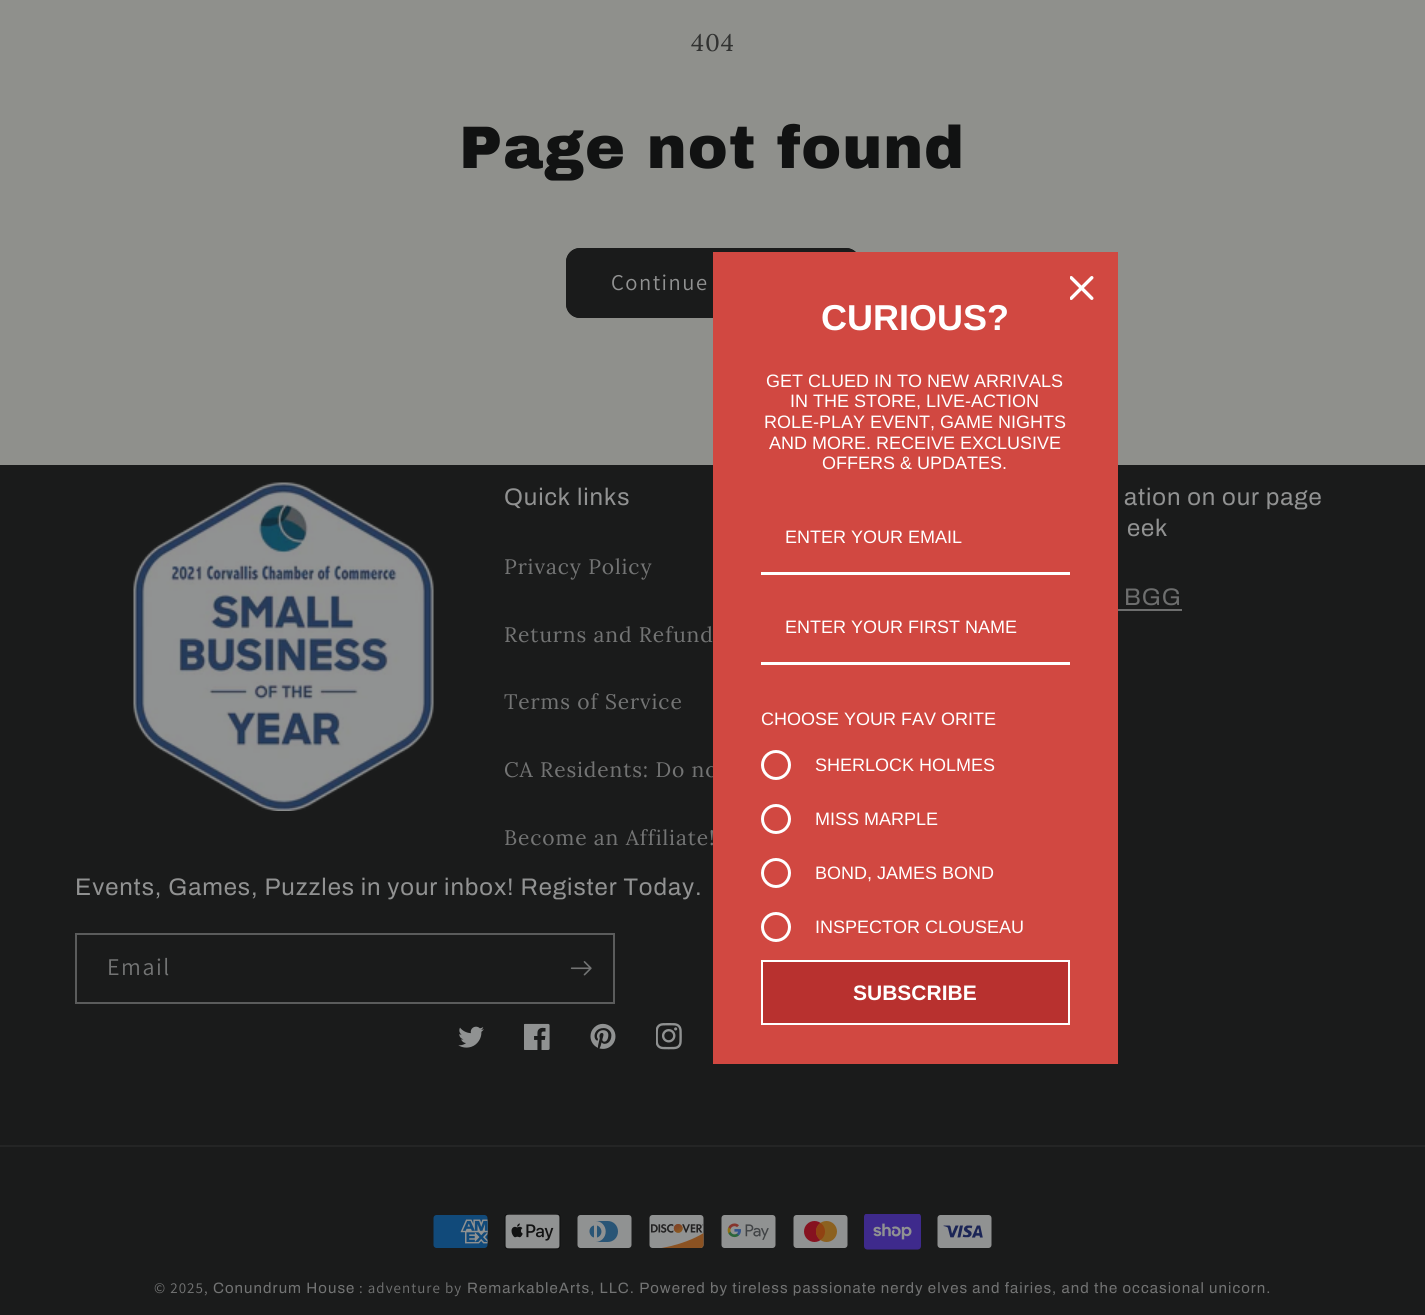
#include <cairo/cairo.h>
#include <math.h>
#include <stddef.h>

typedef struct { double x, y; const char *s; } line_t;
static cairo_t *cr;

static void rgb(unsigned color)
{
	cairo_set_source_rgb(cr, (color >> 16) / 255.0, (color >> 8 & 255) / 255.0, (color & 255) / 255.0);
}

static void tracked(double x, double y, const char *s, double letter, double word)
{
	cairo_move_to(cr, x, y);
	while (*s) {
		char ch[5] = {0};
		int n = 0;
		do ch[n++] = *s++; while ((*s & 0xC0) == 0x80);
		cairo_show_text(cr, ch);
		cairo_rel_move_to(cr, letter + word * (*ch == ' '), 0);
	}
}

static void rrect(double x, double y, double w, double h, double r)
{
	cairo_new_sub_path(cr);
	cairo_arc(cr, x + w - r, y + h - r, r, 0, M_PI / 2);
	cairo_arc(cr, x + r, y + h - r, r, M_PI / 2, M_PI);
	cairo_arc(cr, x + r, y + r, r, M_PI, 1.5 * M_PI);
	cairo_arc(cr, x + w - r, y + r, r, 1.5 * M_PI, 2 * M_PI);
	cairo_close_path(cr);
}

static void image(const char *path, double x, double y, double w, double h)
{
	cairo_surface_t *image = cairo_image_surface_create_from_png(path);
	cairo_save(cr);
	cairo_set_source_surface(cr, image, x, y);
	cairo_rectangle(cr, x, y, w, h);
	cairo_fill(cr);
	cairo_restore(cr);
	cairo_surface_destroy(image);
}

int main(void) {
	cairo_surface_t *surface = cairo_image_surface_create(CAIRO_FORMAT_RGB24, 1425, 1315);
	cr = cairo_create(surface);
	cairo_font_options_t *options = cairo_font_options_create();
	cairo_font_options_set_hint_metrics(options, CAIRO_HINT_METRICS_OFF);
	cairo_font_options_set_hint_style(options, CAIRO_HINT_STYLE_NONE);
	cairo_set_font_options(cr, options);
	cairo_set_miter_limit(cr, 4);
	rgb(0x8f908c);
	cairo_paint(cr);
	rgb(0x1a1b1b);
	rrect(566, 248, 294, 70, 14);
	cairo_fill(cr);
	rrect(567, 249, 292, 68, 13);
	cairo_stroke(cr);
	cairo_rectangle(cr, 0, 465, 1425, 850);
	cairo_fill(cr);
	image("img/2.png", 133, 482, 301, 329);
	rgb(0x6d6e6e);
	cairo_rectangle(cr, 1118, 609, 64, 2);
	cairo_fill(cr);
	cairo_rectangle(cr, 76, 934, 538, 69);
	rgb(0x5b5c5c);
	cairo_stroke(cr);
	image("img/3.png", 570, 961, 22, 15);
	image("img/4.png", 458, 1026, 26, 22);
	image("img/5.png", 524, 1023, 26, 27);
	image("img/6.png", 590, 1023, 26, 26);
	image("img/7.png", 656, 1023, 26, 27);
	rgb(0x242525);
	cairo_rectangle(cr, 0, 1145, 1425, 2);
	cairo_fill(cr);
	image("img/8.png", 433, 1215, 55, 33);
	image("img/9.png", 504, 1214, 57, 36);
	image("img/10.png", 577, 1215, 55, 33);
	image("img/11.png", 649, 1215, 55, 33);
	image("img/12.png", 721, 1215, 55, 33);
	image("img/13.png", 793, 1215, 55, 33);
	image("img/14.png", 864, 1214, 57, 36);
	image("img/15.png", 937, 1215, 55, 33);
	cairo_select_font_face(cr, "Lora", CAIRO_FONT_SLANT_NORMAL, CAIRO_FONT_WEIGHT_NORMAL);
	cairo_set_font_size(cr, 24);
	rgb(0x313231);
	tracked(691, 51, "404", 0.9, 0);
	cairo_select_font_face(cr, "Archivo Black Black", CAIRO_FONT_SLANT_NORMAL, CAIRO_FONT_WEIGHT_NORMAL);
	cairo_set_font_size(cr, 60);
	rgb(0x111212);
	tracked(459, 168, "Page not found", 0.9, 0);
	cairo_select_font_face(cr, "Assistant", CAIRO_FONT_SLANT_NORMAL, CAIRO_FONT_WEIGHT_NORMAL);
	cairo_set_font_size(cr, 22.5);
	rgb(0x919292);
	tracked(611, 290, "Continue", 1.5, 0);
	cairo_select_font_face(cr, "Archivo", CAIRO_FONT_SLANT_NORMAL, CAIRO_FONT_WEIGHT_NORMAL);
	cairo_set_font_size(cr, 24);
	tracked(504, 505, "Quick links", 0.9, 0);
	cairo_select_font_face(cr, "Lora", CAIRO_FONT_SLANT_NORMAL, CAIRO_FONT_WEIGHT_NORMAL);
	cairo_set_font_size(cr, 21);
	rgb(0x737474);
	{
		static const line_t items[] = {
			{504, 574, "Privacy Policy"},
			{504, 642, "Returns and Refund"},
			{504, 709, "Terms of Service"},
			{504, 777, "CA Residents: Do no"},
		};
		for (size_t i = 0; i < sizeof items / sizeof *items; i++) {
			tracked(items[i].x, items[i].y, items[i].s, 0.9, 0);
		}
	}
	rgb(0xd14841);
	cairo_rectangle(cr, 713, 252, 405, 812);
	cairo_fill(cr);
	image("img/1.png", 1070, 276, 24, 24);
	rgb(0xb8312f);
	cairo_rectangle(cr, 762, 961, 307, 63);
	cairo_fill_preserve(cr);
	rgb(0xffffff);
	cairo_stroke(cr);
	cairo_select_font_face(cr, "Liberation Sans", CAIRO_FONT_SLANT_NORMAL, CAIRO_FONT_WEIGHT_BOLD);
	cairo_move_to(cr, 853, 1000);
	cairo_show_text(cr, "SUBSCRIBE");
	cairo_select_font_face(cr, "Liberation Sans", CAIRO_FONT_SLANT_NORMAL, CAIRO_FONT_WEIGHT_NORMAL);
	cairo_set_font_size(cr, 18);
	cairo_move_to(cr, 815, 933);
	cairo_show_text(cr, "INSPECTOR CLOUSEAU");
	cairo_new_path(cr);
	cairo_arc(cr, 776, 927, 13.5, 0, 2 * M_PI);
	cairo_set_line_width(cr, 3);
	cairo_stroke(cr);
	cairo_move_to(cr, 815, 879);
	cairo_show_text(cr, "BOND, JAMES BOND");
	cairo_new_path(cr);
	cairo_arc(cr, 776, 873, 13.5, 0, 2 * M_PI);
	cairo_stroke(cr);
	cairo_move_to(cr, 815, 825);
	cairo_show_text(cr, "MISS MARPLE");
	cairo_new_path(cr);
	cairo_arc(cr, 776, 819, 13.5, 0, 2 * M_PI);
	cairo_stroke(cr);
	cairo_move_to(cr, 815, 771);
	cairo_show_text(cr, "SHERLOCK HOLMES");
	cairo_new_path(cr);
	cairo_arc(cr, 776, 765, 13.5, 0, 2 * M_PI);
	cairo_stroke(cr);
	cairo_move_to(cr, 761, 725);
	cairo_show_text(cr, "CHOOSE YOUR FAV ORITE");
	cairo_move_to(cr, 785, 633);
	cairo_show_text(cr, "ENTER YOUR FIRST NAME");
	cairo_rectangle(cr, 761, 662, 309, 3);
	cairo_fill(cr);
	cairo_move_to(cr, 785, 543);
	cairo_show_text(cr, "ENTER YOUR EMAIL");
	cairo_rectangle(cr, 761, 572, 309, 3);
	cairo_fill(cr);
	{
		static const line_t items[] = {
			{822, 469, "OFFERS & UPDATES."},
			{769, 449, "AND MORE. RECEIVE EXCLUSIVE"},
			{764, 428, "ROLE-PLAY EVENT, GAME NIGHTS"},
			{790, 407, "IN THE STORE, LIVE-ACTION"},
			{766, 387, "GET CLUED IN TO NEW ARRIVALS"},
		};
		for (size_t i = 0; i < sizeof items / sizeof *items; i++) {
			cairo_move_to(cr, items[i].x, items[i].y);
			cairo_show_text(cr, items[i].s);
		}
	}
	cairo_select_font_face(cr, "Liberation Sans", CAIRO_FONT_SLANT_NORMAL, CAIRO_FONT_WEIGHT_BOLD);
	cairo_set_font_size(cr, 36);
	cairo_move_to(cr, 821, 330);
	cairo_show_text(cr, "CURIOUS?");
	cairo_select_font_face(cr, "Lora", CAIRO_FONT_SLANT_NORMAL, CAIRO_FONT_WEIGHT_NORMAL);
	cairo_set_font_size(cr, 21);
	rgb(0x737474);
	tracked(504, 845, "Become an Affiliate!", 0.9, 0);
	cairo_select_font_face(cr, "Archivo", CAIRO_FONT_SLANT_NORMAL, CAIRO_FONT_WEIGHT_NORMAL);
	cairo_set_font_size(cr, 24);
	rgb(0x919292);
	tracked(1124, 505, "ation on our page", 0.9, 0);
	tracked(1127, 536, "eek", 0.9, 0);
	rgb(0x6d6e6e);
	tracked(1124, 605, "BGG", 0.9, 0);
	rgb(0x919292);
	tracked(75, 895, "Events, Games, Puzzles in your inbox! Register Today.", 0.9, 0);
	cairo_select_font_face(cr, "Assistant", CAIRO_FONT_SLANT_NORMAL, CAIRO_FONT_WEIGHT_NORMAL);
	rgb(0x737474);
	tracked(107, 975, "Email", 1.5, 0);
	cairo_set_font_size(cr, 15);
	tracked(154, 1293, "© 2025,", 1.05, 0);
	cairo_select_font_face(cr, "Archivo", CAIRO_FONT_SLANT_NORMAL, CAIRO_FONT_WEIGHT_NORMAL);
	tracked(213, 1293, "Conundrum House", 1.05, 0);
	cairo_select_font_face(cr, "Assistant", CAIRO_FONT_SLANT_NORMAL, CAIRO_FONT_WEIGHT_NORMAL);
	tracked(359, 1293, ": adventure by", 1.05, 0);
	cairo_select_font_face(cr, "Archivo", CAIRO_FONT_SLANT_NORMAL, CAIRO_FONT_WEIGHT_NORMAL);
	tracked(467, 1293, "RemarkableArts, LLC. Powered by tireless passionate nerdy elves and fairies, and the occasional unicorn.", 1.05, 0);
	cairo_surface_write_to_png(surface, "page.png");
	cairo_font_options_destroy(options);
	cairo_destroy(cr);
	cairo_surface_destroy(surface);
	return 0;
}
